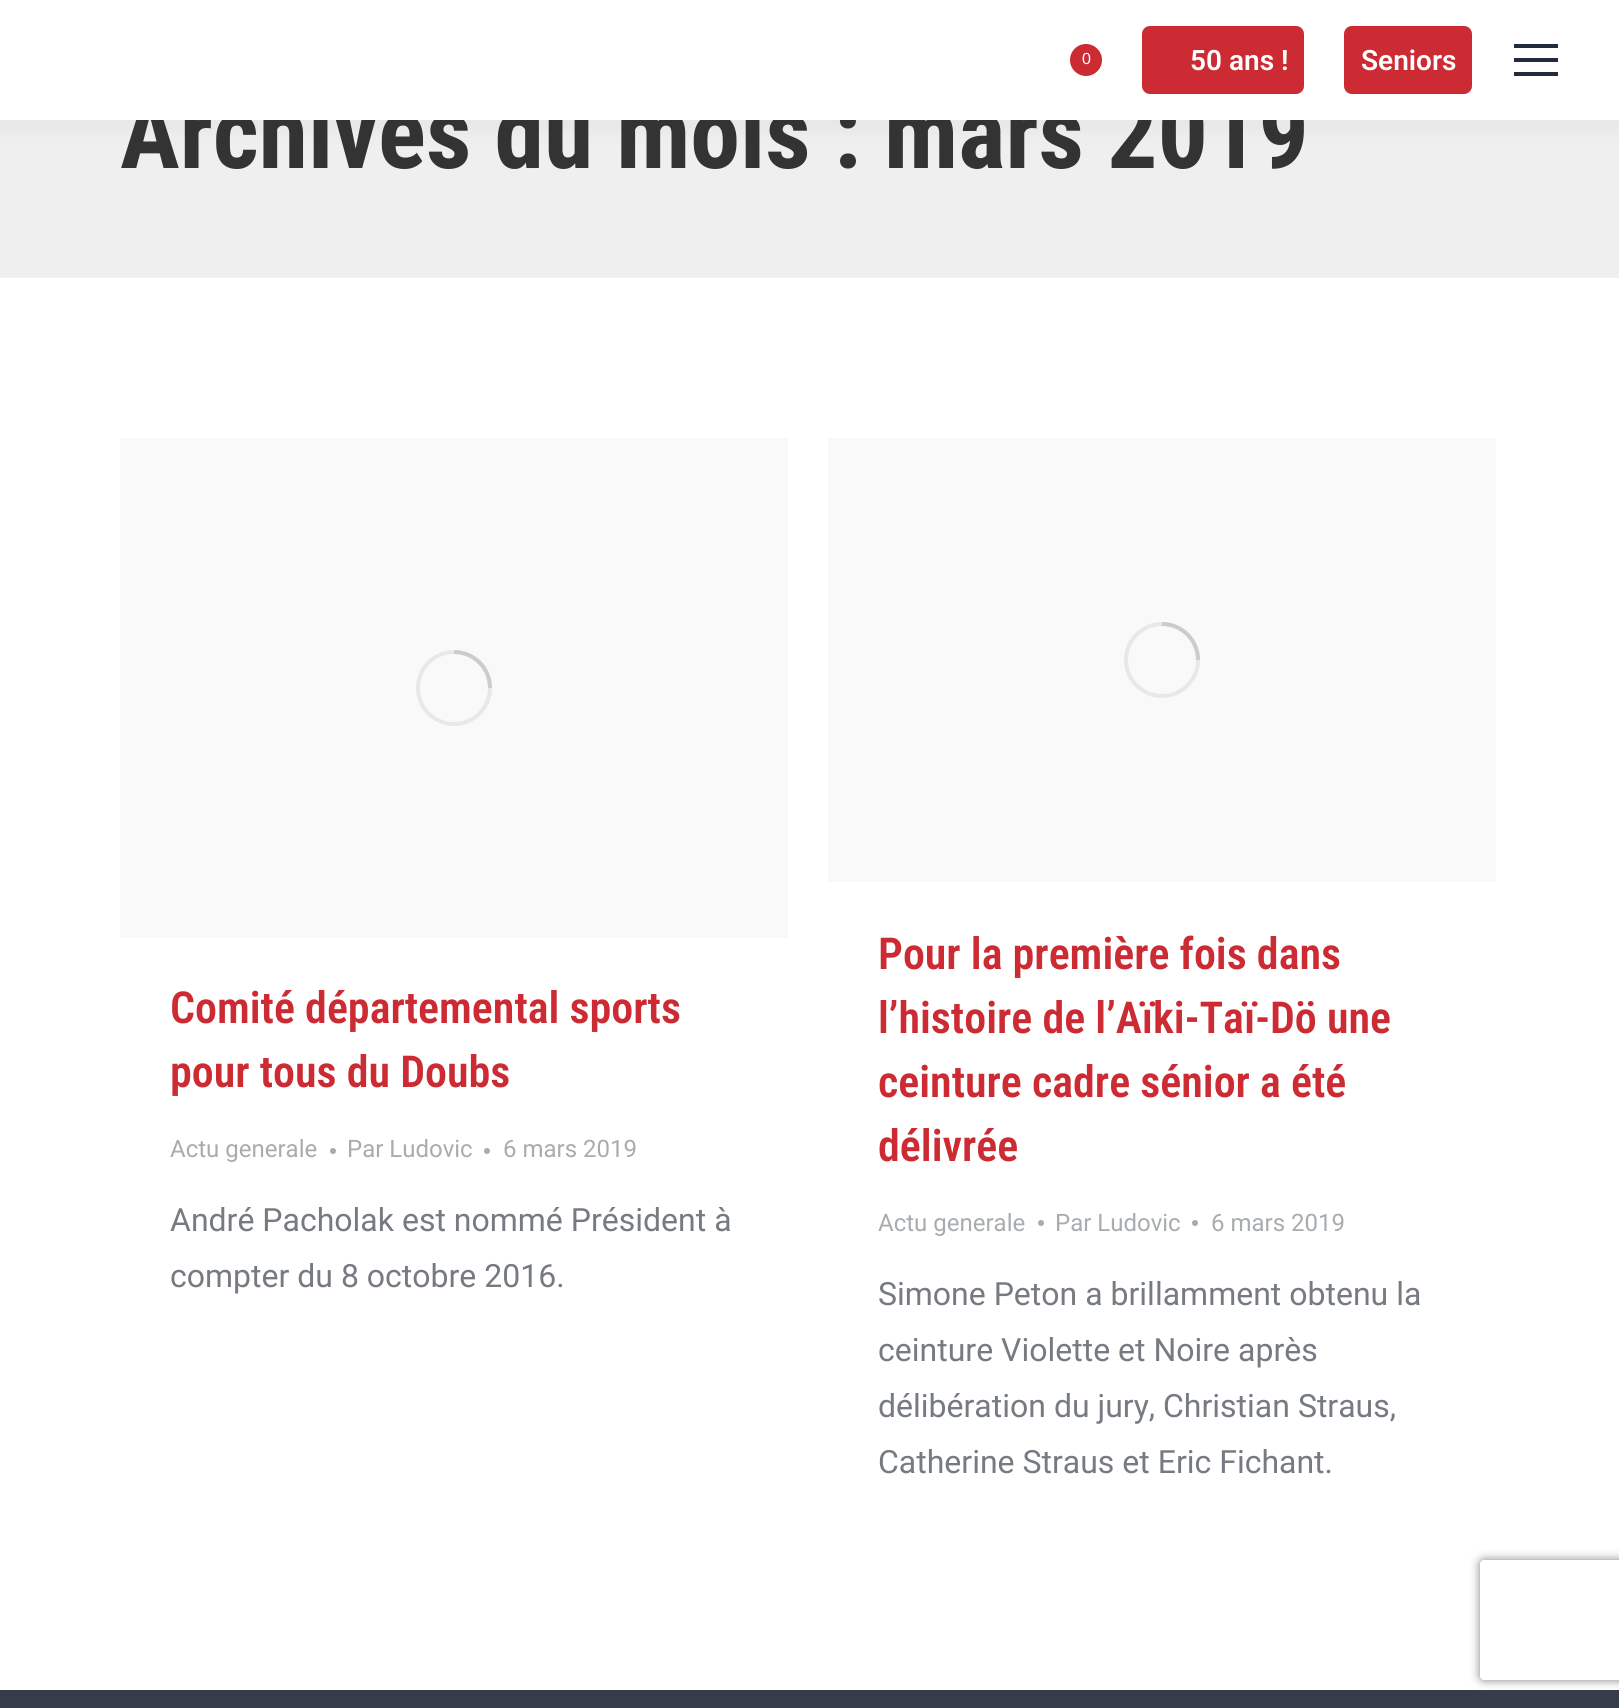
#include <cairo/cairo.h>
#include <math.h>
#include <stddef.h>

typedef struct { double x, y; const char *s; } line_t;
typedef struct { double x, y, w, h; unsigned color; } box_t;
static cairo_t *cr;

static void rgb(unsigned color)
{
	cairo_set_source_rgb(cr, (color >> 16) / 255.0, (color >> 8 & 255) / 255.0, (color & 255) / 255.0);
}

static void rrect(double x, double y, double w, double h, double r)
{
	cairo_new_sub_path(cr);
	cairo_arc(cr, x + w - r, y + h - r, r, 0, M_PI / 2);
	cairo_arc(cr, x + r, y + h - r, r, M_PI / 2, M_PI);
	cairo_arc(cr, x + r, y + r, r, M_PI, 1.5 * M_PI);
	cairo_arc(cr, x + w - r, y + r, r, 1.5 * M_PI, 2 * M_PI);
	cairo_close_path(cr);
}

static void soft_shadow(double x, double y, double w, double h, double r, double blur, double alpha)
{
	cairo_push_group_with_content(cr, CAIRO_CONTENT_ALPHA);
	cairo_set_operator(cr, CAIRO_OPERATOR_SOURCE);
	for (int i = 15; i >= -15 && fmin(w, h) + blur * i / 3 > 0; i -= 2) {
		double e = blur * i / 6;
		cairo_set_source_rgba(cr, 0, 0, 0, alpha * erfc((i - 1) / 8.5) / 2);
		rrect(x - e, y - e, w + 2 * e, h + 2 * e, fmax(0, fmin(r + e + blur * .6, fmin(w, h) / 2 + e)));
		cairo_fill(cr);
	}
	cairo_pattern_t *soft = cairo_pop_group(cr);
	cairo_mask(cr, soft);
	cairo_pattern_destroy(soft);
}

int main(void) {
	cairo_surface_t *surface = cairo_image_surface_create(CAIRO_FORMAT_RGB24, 1619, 1708);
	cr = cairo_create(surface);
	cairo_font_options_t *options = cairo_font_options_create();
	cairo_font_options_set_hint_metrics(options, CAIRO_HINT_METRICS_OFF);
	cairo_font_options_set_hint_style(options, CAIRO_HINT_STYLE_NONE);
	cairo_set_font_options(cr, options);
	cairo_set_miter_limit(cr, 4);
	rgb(0xffffff);
	cairo_paint(cr);
	rgb(0xefefef);
	cairo_rectangle(cr, 0, 120, 1619, 158);
	cairo_fill(cr);
	rgb(0x000000);
	soft_shadow(-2, -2, 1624, 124, 0, 15, 0.07);
	rgb(0xf9f9f9);
	cairo_rectangle(cr, 120, 438, 668, 500);
	cairo_fill(cr);
	cairo_arc(cr, 454, 688, 36, 0, 2 * M_PI);
	rgb(0xe7e8e9);
	cairo_set_line_width(cr, 4);
	cairo_stroke(cr);
	cairo_new_path(cr);
	cairo_move_to(cr, 490, 688);
	cairo_curve_to(cr, 490, 668, 474, 652, 454, 652);
	cairo_set_source_rgba(cr, 0.463, 0.478, 0.506, 0.25);
	cairo_stroke(cr);
	rgb(0xa8acaf);
	cairo_arc(cr, 333, 1151, 3, 0, 2 * M_PI);
	cairo_fill(cr);
	cairo_arc(cr, 487, 1151, 3, 0, 2 * M_PI);
	cairo_fill(cr);
	rgb(0xf9f9f9);
	cairo_rectangle(cr, 828, 438, 668, 444);
	cairo_fill(cr);
	cairo_arc(cr, 1162, 660, 36, 0, 2 * M_PI);
	rgb(0xe7e8e9);
	cairo_stroke(cr);
	cairo_new_path(cr);
	cairo_move_to(cr, 1198, 660);
	cairo_curve_to(cr, 1198, 640, 1182, 624, 1162, 624);
	cairo_set_source_rgba(cr, 0.463, 0.478, 0.506, 0.25);
	cairo_stroke(cr);
	rgb(0xa8acaf);
	cairo_arc(cr, 1041, 1223, 3, 0, 2 * M_PI);
	cairo_fill(cr);
	cairo_arc(cr, 1195, 1223, 3, 0, 2 * M_PI);
	cairo_fill(cr);
	rgb(0x363c48);
	cairo_rectangle(cr, 0, 1690, 1619, 18);
	cairo_fill(cr);
	cairo_save(cr);
	cairo_set_fill_rule(cr, CAIRO_FILL_RULE_EVEN_ODD);
	cairo_new_path(cr);
	cairo_move_to(cr, 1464, 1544);
	cairo_line_to(cr, 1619, 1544);
	cairo_line_to(cr, 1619, 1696);
	cairo_line_to(cr, 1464, 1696);
	cairo_close_path(cr);
	cairo_move_to(cr, 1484, 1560);
	cairo_line_to(cr, 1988, 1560);
	cairo_curve_to(cr, 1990, 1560, 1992, 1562, 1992, 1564);
	cairo_line_to(cr, 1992, 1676);
	cairo_curve_to(cr, 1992, 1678, 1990, 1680, 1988, 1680);
	cairo_line_to(cr, 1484, 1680);
	cairo_curve_to(cr, 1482, 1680, 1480, 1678, 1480, 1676);
	cairo_line_to(cr, 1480, 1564);
	cairo_curve_to(cr, 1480, 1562, 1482, 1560, 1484, 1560);
	cairo_close_path(cr);
	cairo_clip(cr);
	rgb(0x808080);
	soft_shadow(1480, 1560, 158, 120, 4, 5, 1);
	cairo_restore(cr);
	cairo_select_font_face(cr, "Roboto Condensed", CAIRO_FONT_SLANT_NORMAL, CAIRO_FONT_WEIGHT_BOLD);
	cairo_set_font_size(cr, 100);
	rgb(0x333333);
	cairo_move_to(cr, 120, 168);
	cairo_show_text(cr, "Archives du mois : mars 2019");
	{
		static const box_t items[] = {
			{0, 0, 1619, 120, 0xffffff},
			{1514, 72, 44, 4, 0x202b40},
			{1514, 58, 44, 4, 0x202b40},
			{1514, 44, 44, 4, 0x202b40},
		};
		for (size_t i = 0; i < sizeof items / sizeof *items; i++) {
			rgb(items[i].color);
			cairo_rectangle(cr, items[i].x, items[i].y, items[i].w, items[i].h);
			cairo_fill(cr);
		}
	}
	rgb(0xcc2b33);
	rrect(1344, 26, 128, 68, 8);
	cairo_fill(cr);
	cairo_select_font_face(cr, "Roboto SemiBold", CAIRO_FONT_SLANT_NORMAL, CAIRO_FONT_WEIGHT_NORMAL);
	cairo_set_font_size(cr, 28);
	rgb(0xffffff);
	cairo_move_to(cr, 1361, 70);
	cairo_show_text(cr, "Seniors");
	rgb(0xcc2b33);
	rrect(1142, 26, 162, 68, 8);
	cairo_fill(cr);
	rgb(0xffffff);
	cairo_move_to(cr, 1190, 70);
	cairo_show_text(cr, "50 ans !");
	rgb(0xcc2b33);
	cairo_new_path(cr);
	cairo_arc(cr, 1086, 60, 16, 0, 2 * M_PI);
	cairo_fill(cr);
	cairo_select_font_face(cr, "Liberation Sans", CAIRO_FONT_SLANT_NORMAL, CAIRO_FONT_WEIGHT_NORMAL);
	cairo_set_font_size(cr, 16);
	rgb(0xffffff);
	cairo_move_to(cr, 1082, 64);
	cairo_show_text(cr, "0");
	cairo_select_font_face(cr, "Roboto Condensed SemiBold", CAIRO_FONT_SLANT_NORMAL, CAIRO_FONT_WEIGHT_NORMAL);
	cairo_set_font_size(cr, 44);
	rgb(0xcc2b33);
	cairo_move_to(cr, 170, 1023);
	cairo_show_text(cr, "Comité départemental sports");
	cairo_move_to(cr, 170, 1087);
	cairo_show_text(cr, "pour tous du Doubs");
	cairo_select_font_face(cr, "Roboto", CAIRO_FONT_SLANT_NORMAL, CAIRO_FONT_WEIGHT_NORMAL);
	cairo_set_font_size(cr, 24);
	rgb(0xa8acaf);
	{
		static const line_t items[] = {
			{170, 1157, "Actu generale"},
			{347, 1157, "Par Ludovic"},
			{503, 1157, "6 mars 2019"},
		};
		for (size_t i = 0; i < sizeof items / sizeof *items; i++) {
			cairo_move_to(cr, items[i].x, items[i].y);
			cairo_show_text(cr, items[i].s);
		}
	}
	cairo_set_font_size(cr, 32);
	rgb(0x767a81);
	cairo_move_to(cr, 170, 1231);
	cairo_show_text(cr, "André Pacholak est nommé Président à");
	cairo_move_to(cr, 170, 1287);
	cairo_show_text(cr, "compter du 8 octobre 2016.");
	cairo_select_font_face(cr, "Roboto Condensed SemiBold", CAIRO_FONT_SLANT_NORMAL, CAIRO_FONT_WEIGHT_NORMAL);
	cairo_set_font_size(cr, 44);
	rgb(0xcc2b33);
	{
		static const line_t items[] = {
			{878, 969, "Pour la première fois dans"},
			{878, 1033, "l’histoire de l’Aïki-Taï-Dö une"},
			{878, 1097, "ceinture cadre sénior a été"},
			{878, 1161, "délivrée"},
		};
		for (size_t i = 0; i < sizeof items / sizeof *items; i++) {
			cairo_move_to(cr, items[i].x, items[i].y);
			cairo_show_text(cr, items[i].s);
		}
	}
	cairo_select_font_face(cr, "Roboto", CAIRO_FONT_SLANT_NORMAL, CAIRO_FONT_WEIGHT_NORMAL);
	cairo_set_font_size(cr, 24);
	rgb(0xa8acaf);
	{
		static const line_t items[] = {
			{878, 1231, "Actu generale"},
			{1055, 1231, "Par Ludovic"},
			{1211, 1231, "6 mars 2019"},
		};
		for (size_t i = 0; i < sizeof items / sizeof *items; i++) {
			cairo_move_to(cr, items[i].x, items[i].y);
			cairo_show_text(cr, items[i].s);
		}
	}
	cairo_set_font_size(cr, 32);
	rgb(0x767a81);
	{
		static const line_t items[] = {
			{878, 1305, "Simone Peton a brillamment obtenu la"},
			{878, 1361, "ceinture Violette et Noire après"},
			{878, 1417, "délibération du jury, Christian Straus,"},
			{878, 1473, "Catherine Straus et Eric Fichant."},
		};
		for (size_t i = 0; i < sizeof items / sizeof *items; i++) {
			cairo_move_to(cr, items[i].x, items[i].y);
			cairo_show_text(cr, items[i].s);
		}
	}
	cairo_surface_write_to_png(surface, "page.png");
	cairo_font_options_destroy(options);
	cairo_destroy(cr);
	cairo_surface_destroy(surface);
	return 0;
}
